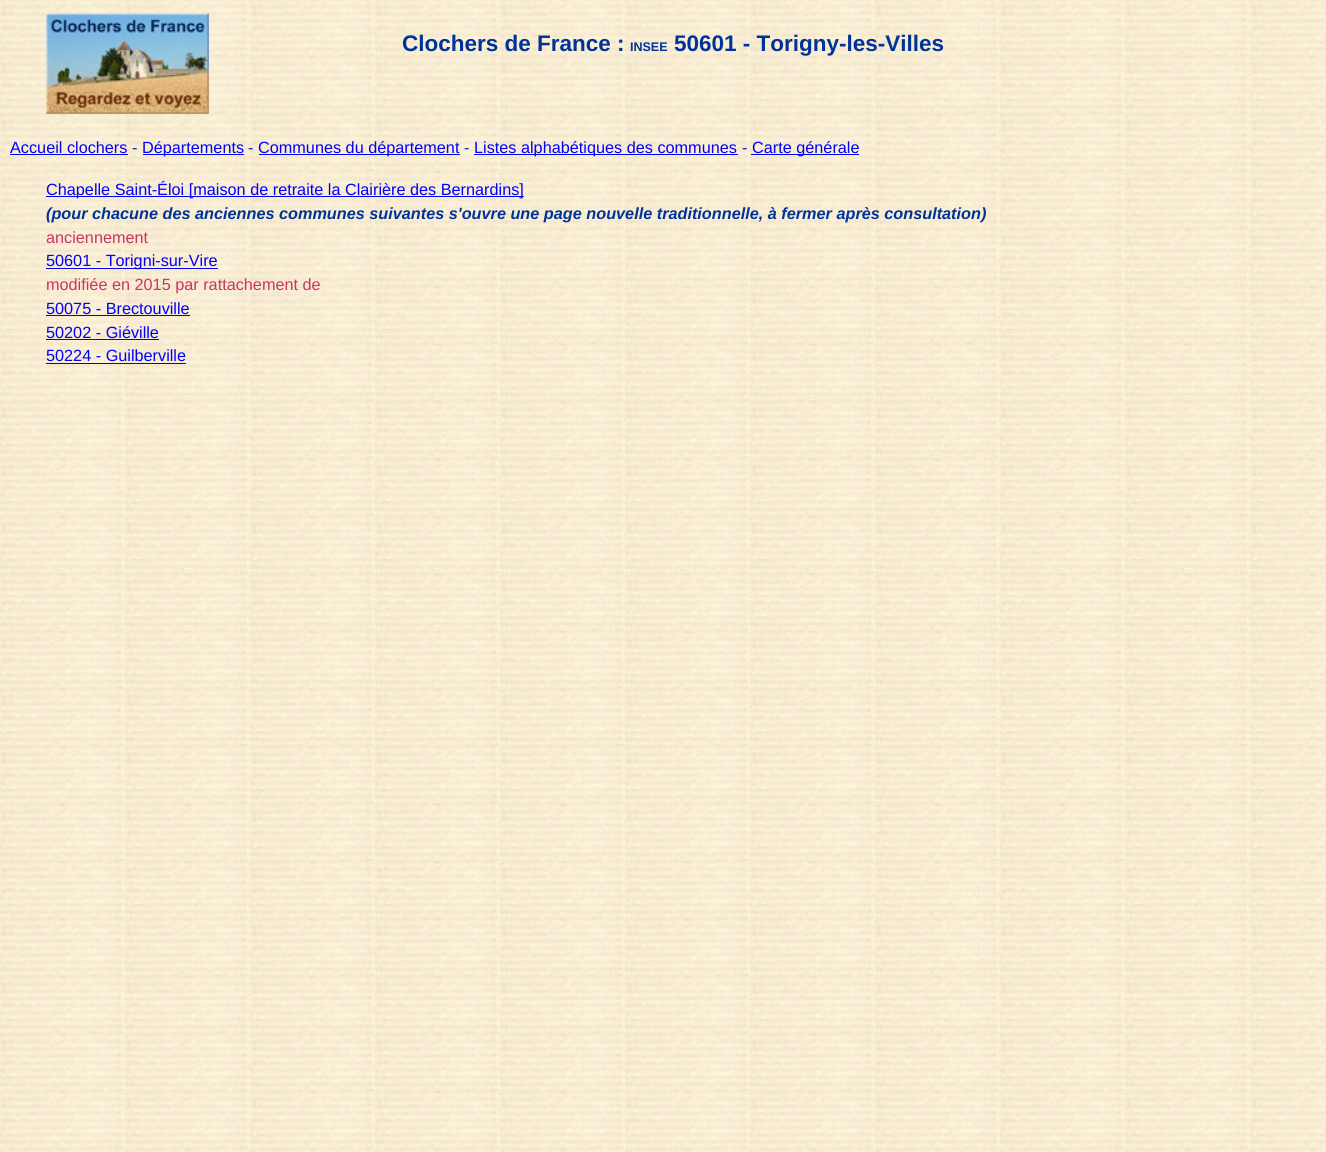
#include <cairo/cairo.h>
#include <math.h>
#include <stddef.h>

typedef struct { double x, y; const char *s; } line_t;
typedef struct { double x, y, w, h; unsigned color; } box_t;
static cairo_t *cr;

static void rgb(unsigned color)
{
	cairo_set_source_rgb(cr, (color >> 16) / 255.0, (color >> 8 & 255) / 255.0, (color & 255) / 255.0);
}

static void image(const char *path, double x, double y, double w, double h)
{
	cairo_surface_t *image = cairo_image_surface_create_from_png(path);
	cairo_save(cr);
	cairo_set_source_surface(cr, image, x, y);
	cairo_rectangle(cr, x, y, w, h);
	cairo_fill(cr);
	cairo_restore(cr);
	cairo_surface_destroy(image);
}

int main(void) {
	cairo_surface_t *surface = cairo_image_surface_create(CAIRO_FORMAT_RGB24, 1326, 1152);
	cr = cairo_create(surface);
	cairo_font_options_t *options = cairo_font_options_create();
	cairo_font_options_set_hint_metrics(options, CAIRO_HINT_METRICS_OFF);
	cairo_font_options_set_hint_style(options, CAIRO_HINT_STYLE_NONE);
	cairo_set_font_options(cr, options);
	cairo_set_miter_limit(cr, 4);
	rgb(0xffffff);
	cairo_paint(cr);
	image("img/1.png", 0, 0, 1326, 1152);
	image("img/2.png", 46, 13, 163, 101);
	{
		static const box_t items[] = {
			{10, 154, 118, 1, 0x0000ff},
			{143, 154, 101, 1, 0x0000ff},
			{259, 154, 201, 1, 0x0000ff},
			{474, 154, 264, 1, 0x0000ff},
			{751, 154, 108, 1, 0x0000ff},
			{46, 196, 478, 1, 0x0000ff},
			{46, 268, 172, 1, 0x0000ff},
			{46, 315, 144, 1, 0x0000ff},
			{46, 339, 113, 1, 0x0000ff},
			{46, 363, 140, 1, 0x0000ff},
		};
		for (size_t i = 0; i < sizeof items / sizeof *items; i++) {
			rgb(items[i].color);
			cairo_rectangle(cr, items[i].x, items[i].y, items[i].w, items[i].h);
			cairo_fill(cr);
		}
	}
	cairo_select_font_face(cr, "Liberation Sans", CAIRO_FONT_SLANT_NORMAL, CAIRO_FONT_WEIGHT_BOLD);
	cairo_set_font_size(cr, 22.5);
	rgb(0x003399);
	cairo_move_to(cr, 402, 51);
	cairo_show_text(cr, "Clochers de France :");
	cairo_set_font_size(cr, 12.5);
	cairo_move_to(cr, 630, 51);
	cairo_show_text(cr, "INSEE");
	cairo_set_font_size(cr, 22.5);
	cairo_move_to(cr, 674, 51);
	cairo_show_text(cr, "50601 - Torigny-les-Villes");
	cairo_select_font_face(cr, "Liberation Sans", CAIRO_FONT_SLANT_NORMAL, CAIRO_FONT_WEIGHT_NORMAL);
	cairo_set_font_size(cr, 16.25);
	rgb(0x0000ff);
	cairo_move_to(cr, 10, 153);
	cairo_show_text(cr, "Accueil clochers");
	rgb(0x003399);
	cairo_move_to(cr, 132, 153);
	cairo_show_text(cr, "-");
	rgb(0x0000ff);
	cairo_move_to(cr, 142, 153);
	cairo_show_text(cr, "Départements");
	rgb(0x003399);
	cairo_move_to(cr, 248, 153);
	cairo_show_text(cr, "-");
	rgb(0x0000ff);
	cairo_move_to(cr, 258, 153);
	cairo_show_text(cr, "Communes du département");
	rgb(0x003399);
	cairo_move_to(cr, 464, 153);
	cairo_show_text(cr, "-");
	rgb(0x0000ff);
	cairo_move_to(cr, 474, 153);
	cairo_show_text(cr, "Listes alphabétiques des communes");
	rgb(0x003399);
	cairo_move_to(cr, 742, 153);
	cairo_show_text(cr, "-");
	rgb(0x0000ff);
	cairo_move_to(cr, 752, 153);
	cairo_show_text(cr, "Carte générale");
	cairo_move_to(cr, 46, 195);
	cairo_show_text(cr, "Chapelle Saint-Éloi [maison de retraite la Clairière des Bernardins]");
	cairo_select_font_face(cr, "Liberation Sans", CAIRO_FONT_SLANT_ITALIC, CAIRO_FONT_WEIGHT_BOLD);
	rgb(0x003399);
	cairo_move_to(cr, 46, 219);
	cairo_show_text(cr, "(pour chacune des anciennes communes suivantes s'ouvre une page nouvelle traditionnelle, à fermer après consultation)");
	cairo_select_font_face(cr, "Liberation Sans", CAIRO_FONT_SLANT_NORMAL, CAIRO_FONT_WEIGHT_NORMAL);
	rgb(0xcc3366);
	cairo_move_to(cr, 46, 243);
	cairo_show_text(cr, "anciennement");
	rgb(0x0000ff);
	cairo_move_to(cr, 46, 266);
	cairo_show_text(cr, "50601 - Torigni-sur-Vire");
	rgb(0xcc3366);
	cairo_move_to(cr, 46, 290);
	cairo_show_text(cr, "modifiée en 2015 par rattachement de");
	rgb(0x0000ff);
	{
		static const line_t items[] = {
			{46, 314, "50075 - Brectouville"},
			{46, 338, "50202 - Giéville"},
			{46, 361, "50224 - Guilberville"},
		};
		for (size_t i = 0; i < sizeof items / sizeof *items; i++) {
			cairo_move_to(cr, items[i].x, items[i].y);
			cairo_show_text(cr, items[i].s);
		}
	}
	cairo_surface_write_to_png(surface, "page.png");
	cairo_font_options_destroy(options);
	cairo_destroy(cr);
	cairo_surface_destroy(surface);
	return 0;
}
